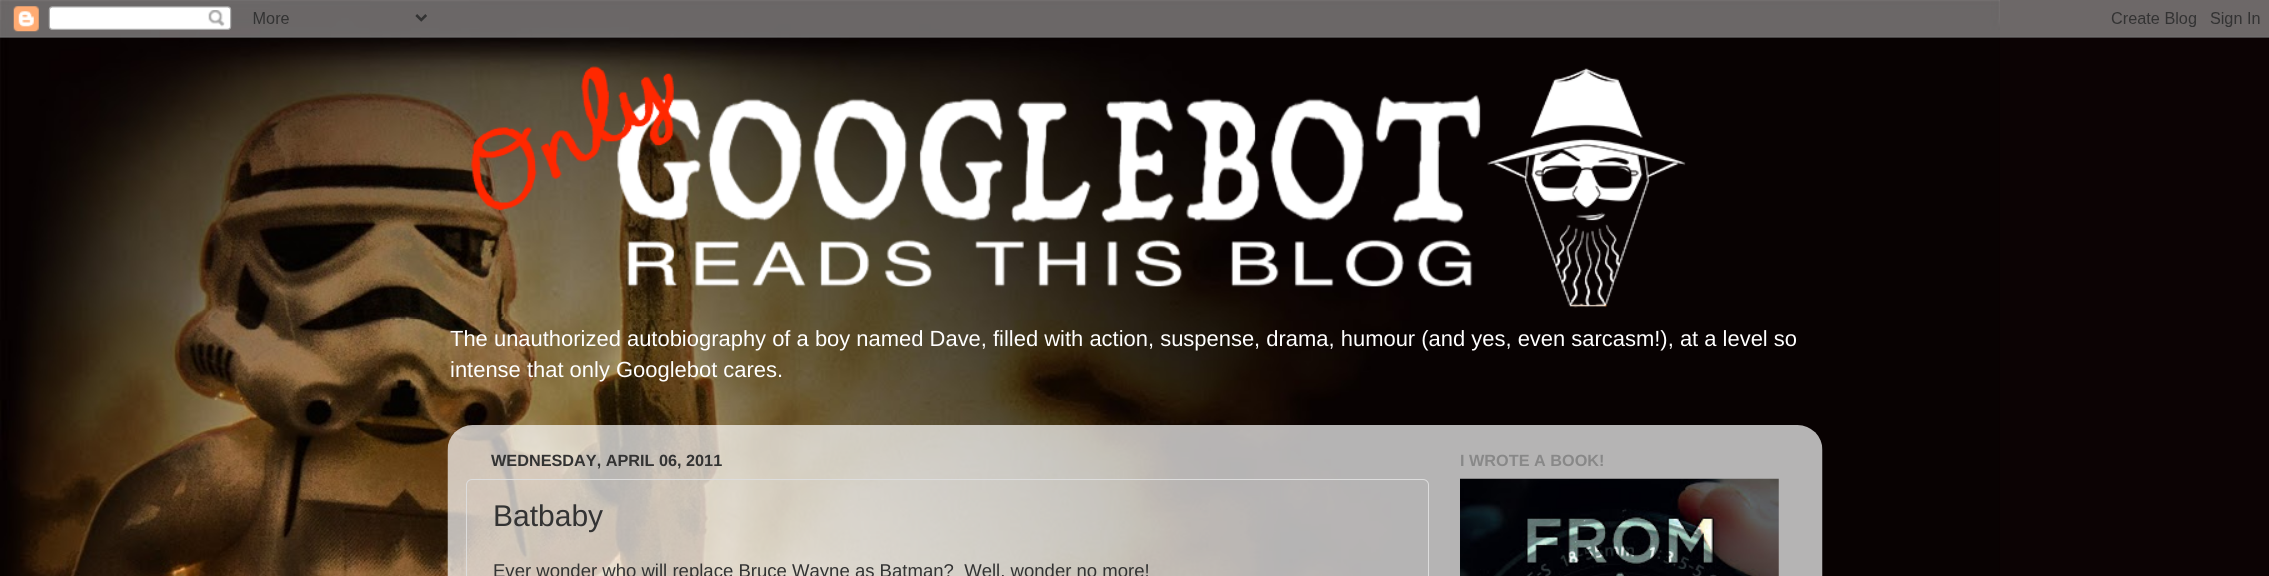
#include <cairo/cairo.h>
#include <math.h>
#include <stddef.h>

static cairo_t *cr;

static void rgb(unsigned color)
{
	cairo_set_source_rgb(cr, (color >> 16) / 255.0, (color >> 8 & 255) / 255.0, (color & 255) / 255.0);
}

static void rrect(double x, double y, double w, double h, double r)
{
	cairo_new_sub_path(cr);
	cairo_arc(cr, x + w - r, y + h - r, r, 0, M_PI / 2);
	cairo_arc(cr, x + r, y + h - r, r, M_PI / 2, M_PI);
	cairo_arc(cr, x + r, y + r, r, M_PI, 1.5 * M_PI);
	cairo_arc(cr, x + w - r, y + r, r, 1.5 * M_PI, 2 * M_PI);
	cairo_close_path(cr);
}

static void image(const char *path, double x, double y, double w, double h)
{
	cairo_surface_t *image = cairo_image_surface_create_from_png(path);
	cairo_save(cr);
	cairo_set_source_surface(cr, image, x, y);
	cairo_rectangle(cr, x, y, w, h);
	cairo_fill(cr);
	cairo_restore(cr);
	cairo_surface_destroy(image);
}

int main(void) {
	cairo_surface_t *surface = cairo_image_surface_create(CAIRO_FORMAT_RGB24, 2269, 576);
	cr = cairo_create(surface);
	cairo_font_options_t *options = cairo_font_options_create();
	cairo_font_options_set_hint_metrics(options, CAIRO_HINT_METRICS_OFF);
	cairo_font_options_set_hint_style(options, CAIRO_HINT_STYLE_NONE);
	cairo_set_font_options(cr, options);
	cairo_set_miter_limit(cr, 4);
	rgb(0x0c0304);
	cairo_paint(cr);
	image("img/1.png", 0, 0, 2000, 576);
	image("img/2.png", 0, 0, 2269, 38);
	image("img/3.png", 471, 66, 1215, 242);
	image("img/4.png", 447, 425, 1376, 151);
	rrect(466.5, 479.5, 962, 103, 5.5);
	rgb(0xdddddd);
	cairo_set_line_width(cr, 1);
	cairo_stroke(cr);
	image("img/5.png", 1460, 478, 319, 98);
	cairo_select_font_face(cr, "Liberation Sans", CAIRO_FONT_SLANT_NORMAL, CAIRO_FONT_WEIGHT_NORMAL);
	cairo_set_font_size(cr, 21.95);
	rgb(0xffffff);
	cairo_move_to(cr, 450, 346);
	cairo_show_text(cr, "The unauthorized autobiography of a boy named Dave, filled with action, suspense, drama, humour (and yes, even sarcasm!), at a level so");
	cairo_move_to(cr, 450, 377);
	cairo_show_text(cr, "intense that only Googlebot cares.");
	cairo_select_font_face(cr, "Liberation Sans", CAIRO_FONT_SLANT_NORMAL, CAIRO_FONT_WEIGHT_BOLD);
	cairo_set_font_size(cr, 16.25);
	rgb(0x333333);
	cairo_move_to(cr, 491, 466);
	cairo_show_text(cr, "WEDNESDAY, APRIL 06, 2011");
	cairo_select_font_face(cr, "Liberation Sans", CAIRO_FONT_SLANT_NORMAL, CAIRO_FONT_WEIGHT_NORMAL);
	cairo_set_font_size(cr, 30);
	cairo_move_to(cr, 493, 526);
	cairo_show_text(cr, "Batbaby");
	cairo_set_font_size(cr, 18.55);
	cairo_move_to(cr, 493, 577);
	cairo_show_text(cr, "Ever wonder who will replace Bruce Wayne as Batman?  Well, wonder no more!");
	cairo_select_font_face(cr, "Liberation Sans", CAIRO_FONT_SLANT_NORMAL, CAIRO_FONT_WEIGHT_BOLD);
	cairo_set_font_size(cr, 16.25);
	rgb(0x888888);
	cairo_move_to(cr, 1460, 466);
	cairo_show_text(cr, "I WROTE A BOOK!");
	cairo_surface_write_to_png(surface, "page.png");
	cairo_font_options_destroy(options);
	cairo_destroy(cr);
	cairo_surface_destroy(surface);
	return 0;
}
